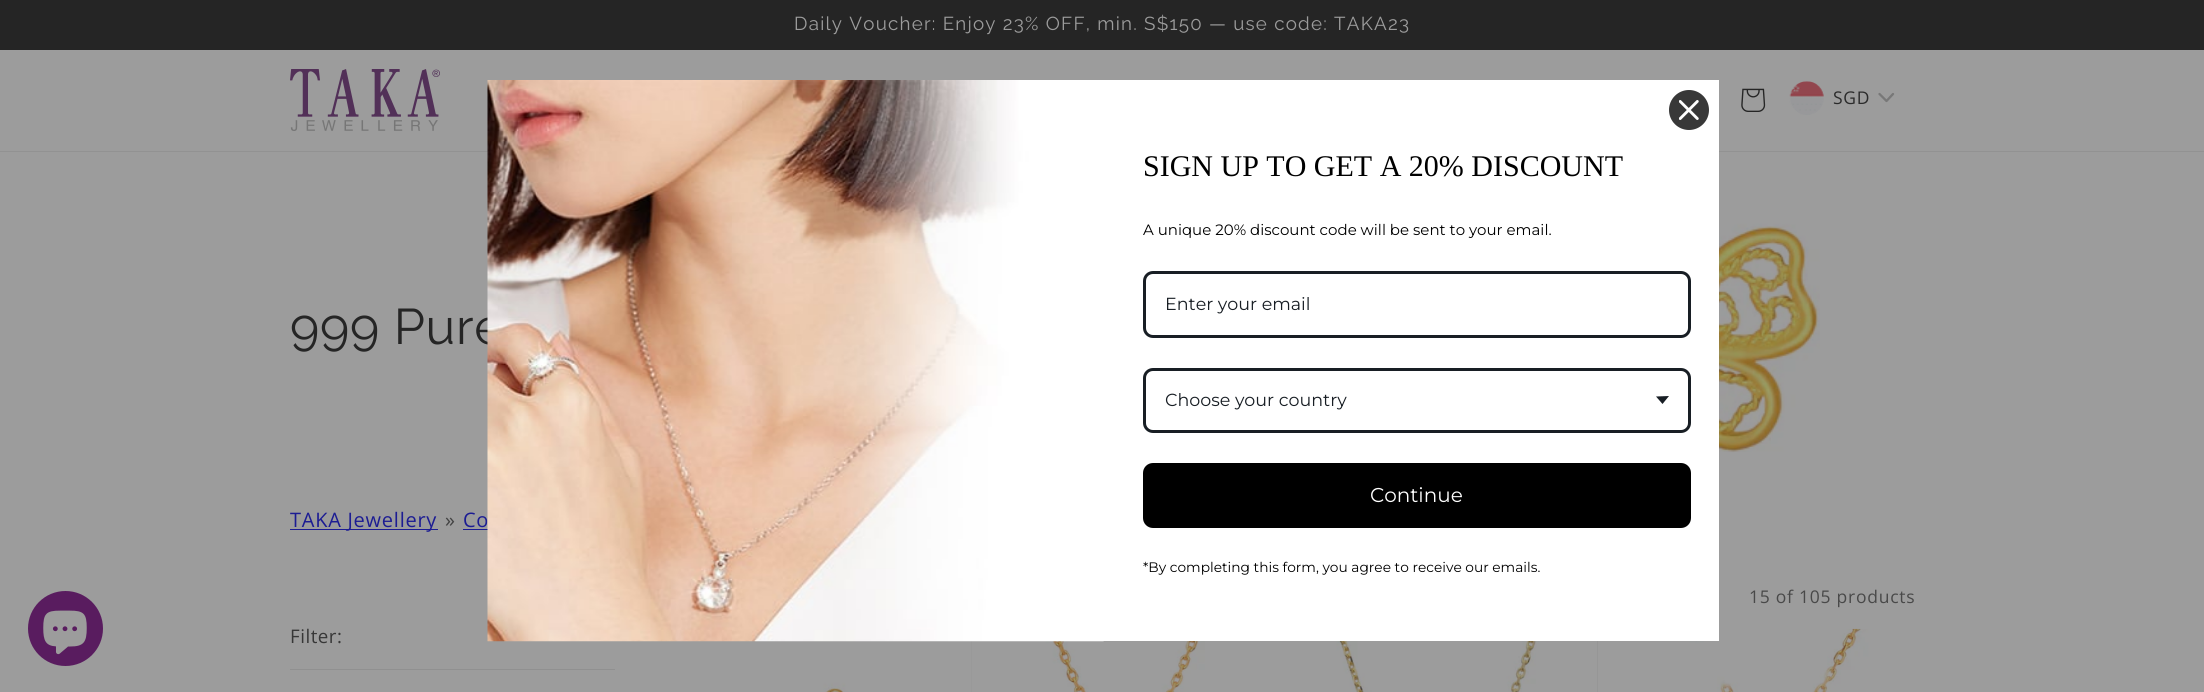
#include <cairo/cairo.h>
#include <math.h>
#include <stddef.h>

typedef struct { double x, y, w, h; unsigned color; } box_t;
static cairo_t *cr;

static void rgb(unsigned color)
{
	cairo_set_source_rgb(cr, (color >> 16) / 255.0, (color >> 8 & 255) / 255.0, (color & 255) / 255.0);
}

static void tracked(double x, double y, const char *s, double letter, double word)
{
	cairo_move_to(cr, x, y);
	while (*s) {
		char ch[5] = {0};
		int n = 0;
		do ch[n++] = *s++; while ((*s & 0xC0) == 0x80);
		cairo_show_text(cr, ch);
		cairo_rel_move_to(cr, letter + word * (*ch == ' '), 0);
	}
}

static void rrect(double x, double y, double w, double h, double r)
{
	cairo_new_sub_path(cr);
	cairo_arc(cr, x + w - r, y + h - r, r, 0, M_PI / 2);
	cairo_arc(cr, x + r, y + h - r, r, M_PI / 2, M_PI);
	cairo_arc(cr, x + r, y + r, r, M_PI, 1.5 * M_PI);
	cairo_arc(cr, x + w - r, y + r, r, 1.5 * M_PI, 2 * M_PI);
	cairo_close_path(cr);
}

static void image(const char *path, double x, double y, double w, double h)
{
	cairo_surface_t *image = cairo_image_surface_create_from_png(path);
	cairo_save(cr);
	cairo_set_source_surface(cr, image, x, y);
	cairo_rectangle(cr, x, y, w, h);
	cairo_fill(cr);
	cairo_restore(cr);
	cairo_surface_destroy(image);
}

int main(void) {
	cairo_surface_t *surface = cairo_image_surface_create(CAIRO_FORMAT_RGB24, 2204, 692);
	cr = cairo_create(surface);
	cairo_font_options_t *options = cairo_font_options_create();
	cairo_font_options_set_hint_metrics(options, CAIRO_HINT_METRICS_OFF);
	cairo_font_options_set_hint_style(options, CAIRO_HINT_STYLE_NONE);
	cairo_set_font_options(cr, options);
	cairo_set_miter_limit(cr, 4);
	rgb(0x9c9c9c);
	cairo_paint(cr);
	rgb(0x252525);
	cairo_rectangle(cr, 0, 0, 2204, 50);
	cairo_fill(cr);
	rgb(0x929292);
	cairo_rectangle(cr, 0, 151, 2204, 1);
	cairo_fill(cr);
	image("img/1.png", 290, 69, 150, 62);
	image("img/2.png", 1741, 88, 25, 24);
	image("img/3.png", 1789, 81, 35, 34);
	cairo_new_path(cr);
	cairo_move_to(cr, 1879.5, 94);
	cairo_line_to(cr, 1886.5, 101);
	cairo_line_to(cr, 1893, 94);
	rgb(0x787878);
	cairo_set_line_width(cr, 2.3);
	cairo_set_line_cap(cr, CAIRO_LINE_CAP_ROUND);
	cairo_set_line_join(cr, CAIRO_LINE_JOIN_ROUND);
	cairo_stroke(cr);
	rgb(0x591c5f);
	cairo_arc(cr, 65.5, 628.5, 37.5, 0, 2 * M_PI);
	cairo_fill(cr);
	image("img/6.png", 43, 610, 44, 45);
	image("img/7.png", 1719, 223, 101, 230);
	{
		static const box_t items[] = {
			{290, 529, 148, 1, 0x1c1c93},
			{463, 529, 25, 1, 0x1c1c93},
			{290, 669, 325, 1, 0x909090},
		};
		for (size_t i = 0; i < sizeof items / sizeof *items; i++) {
			rgb(items[i].color);
			cairo_rectangle(cr, items[i].x, items[i].y, items[i].w, items[i].h);
			cairo_fill(cr);
		}
	}
	image("img/8.png", 653, 641, 308, 51);
	rgb(0x969696);
	cairo_rectangle(cr, 971, 641, 1, 51);
	cairo_fill(cr);
	image("img/9.png", 971, 641, 308, 51);
	cairo_rectangle(cr, 1597, 641, 1, 51);
	cairo_fill(cr);
	image("img/10.png", 1289, 641, 308, 51);
	image("img/11.png", 1608, 628, 307, 64);
	cairo_select_font_face(cr, "Raleway", CAIRO_FONT_SLANT_NORMAL, CAIRO_FONT_WEIGHT_NORMAL);
	cairo_set_font_size(cr, 18.75);
	rgb(0x9c9c9c);
	tracked(794, 30, "Daily Voucher: Enjoy 23% OFF, min. S$150 — use code: TAKA23", 1.25, 0);
	cairo_select_font_face(cr, "Open Sans", CAIRO_FONT_SLANT_NORMAL, CAIRO_FONT_WEIGHT_NORMAL);
	cairo_set_font_size(cr, 17.5);
	rgb(0x2b2b2b);
	tracked(1833, 104, "SGD", 0.75, 0);
	cairo_select_font_face(cr, "Raleway", CAIRO_FONT_SLANT_NORMAL, CAIRO_FONT_WEIGHT_NORMAL);
	cairo_set_font_size(cr, 50);
	rgb(0x252525);
	tracked(290, 344, "999 Pure", 0.75, 0);
	cairo_select_font_face(cr, "Open Sans", CAIRO_FONT_SLANT_NORMAL, CAIRO_FONT_WEIGHT_NORMAL);
	cairo_set_font_size(cr, 20);
	rgb(0x1c1c93);
	tracked(290, 527, "TAKA Jewellery", 0.75, 0);
	rgb(0x434343);
	tracked(445, 527, "»", 0.75, 0);
	rgb(0x1c1c93);
	tracked(463, 527, "Co", 0.75, 0);
	image("img/5.png", 487, 80, 617, 562);
	rgb(0xffffff);
	cairo_rectangle(cr, 1103, 80, 616, 561);
	cairo_fill(cr);
	rgb(0x383838);
	cairo_arc(cr, 1689, 110, 20, 0, 2 * M_PI);
	cairo_fill(cr);
	image("img/4.png", 1679, 100, 20, 20);
	rrect(1144.5, 369.5, 545, 62, 8.5);
	rgb(0x181e24);
	cairo_set_line_width(cr, 3);
	cairo_set_line_cap(cr, CAIRO_LINE_CAP_BUTT);
	cairo_set_line_join(cr, CAIRO_LINE_JOIN_MITER);
	cairo_stroke(cr);
	cairo_set_fill_rule(cr, CAIRO_FILL_RULE_EVEN_ODD);
	cairo_new_path(cr);
	cairo_move_to(cr, 1656, 396.5);
	cairo_line_to(cr, 1669, 396);
	cairo_line_to(cr, 1662.5, 404);
	cairo_close_path(cr);
	cairo_fill(cr);
	cairo_select_font_face(cr, "Montserrat", CAIRO_FONT_SLANT_NORMAL, CAIRO_FONT_WEIGHT_NORMAL);
	cairo_set_font_size(cr, 17.5);
	cairo_move_to(cr, 1165, 406);
	cairo_show_text(cr, "Choose your country");
	cairo_set_font_size(cr, 13.75);
	rgb(0x000000);
	cairo_move_to(cr, 1143, 572);
	cairo_show_text(cr, "*By completing this form, you agree to receive our emails.");
	rrect(1143, 463, 548, 65, 10);
	cairo_fill(cr);
	cairo_set_font_size(cr, 20);
	rgb(0xffffff);
	cairo_move_to(cr, 1370, 502);
	cairo_show_text(cr, "Continue");
	rrect(1144.5, 272.5, 545, 64, 8.5);
	rgb(0x181e24);
	cairo_stroke(cr);
	cairo_set_font_size(cr, 17.5);
	cairo_move_to(cr, 1165, 310);
	cairo_show_text(cr, "Enter your email");
	cairo_set_font_size(cr, 15);
	rgb(0x000000);
	cairo_move_to(cr, 1143, 235);
	cairo_show_text(cr, "A unique 20% discount code will be sent to your email.");
	cairo_select_font_face(cr, "Liberation Serif", CAIRO_FONT_SLANT_NORMAL, CAIRO_FONT_WEIGHT_NORMAL);
	cairo_set_font_size(cr, 30);
	cairo_move_to(cr, 1143, 176);
	cairo_show_text(cr, "SIGN UP TO GET A 20% DISCOUNT");
	cairo_select_font_face(cr, "Open Sans", CAIRO_FONT_SLANT_NORMAL, CAIRO_FONT_WEIGHT_NORMAL);
	cairo_set_font_size(cr, 17.5);
	rgb(0x494949);
	tracked(1749, 603, "15 of 105 products", 0.75, 0);
	cairo_set_font_size(cr, 18.75);
	rgb(0x373737);
	tracked(290, 643, "Filter:", 0.5, 0);
	cairo_surface_write_to_png(surface, "page.png");
	cairo_font_options_destroy(options);
	cairo_destroy(cr);
	cairo_surface_destroy(surface);
	return 0;
}
